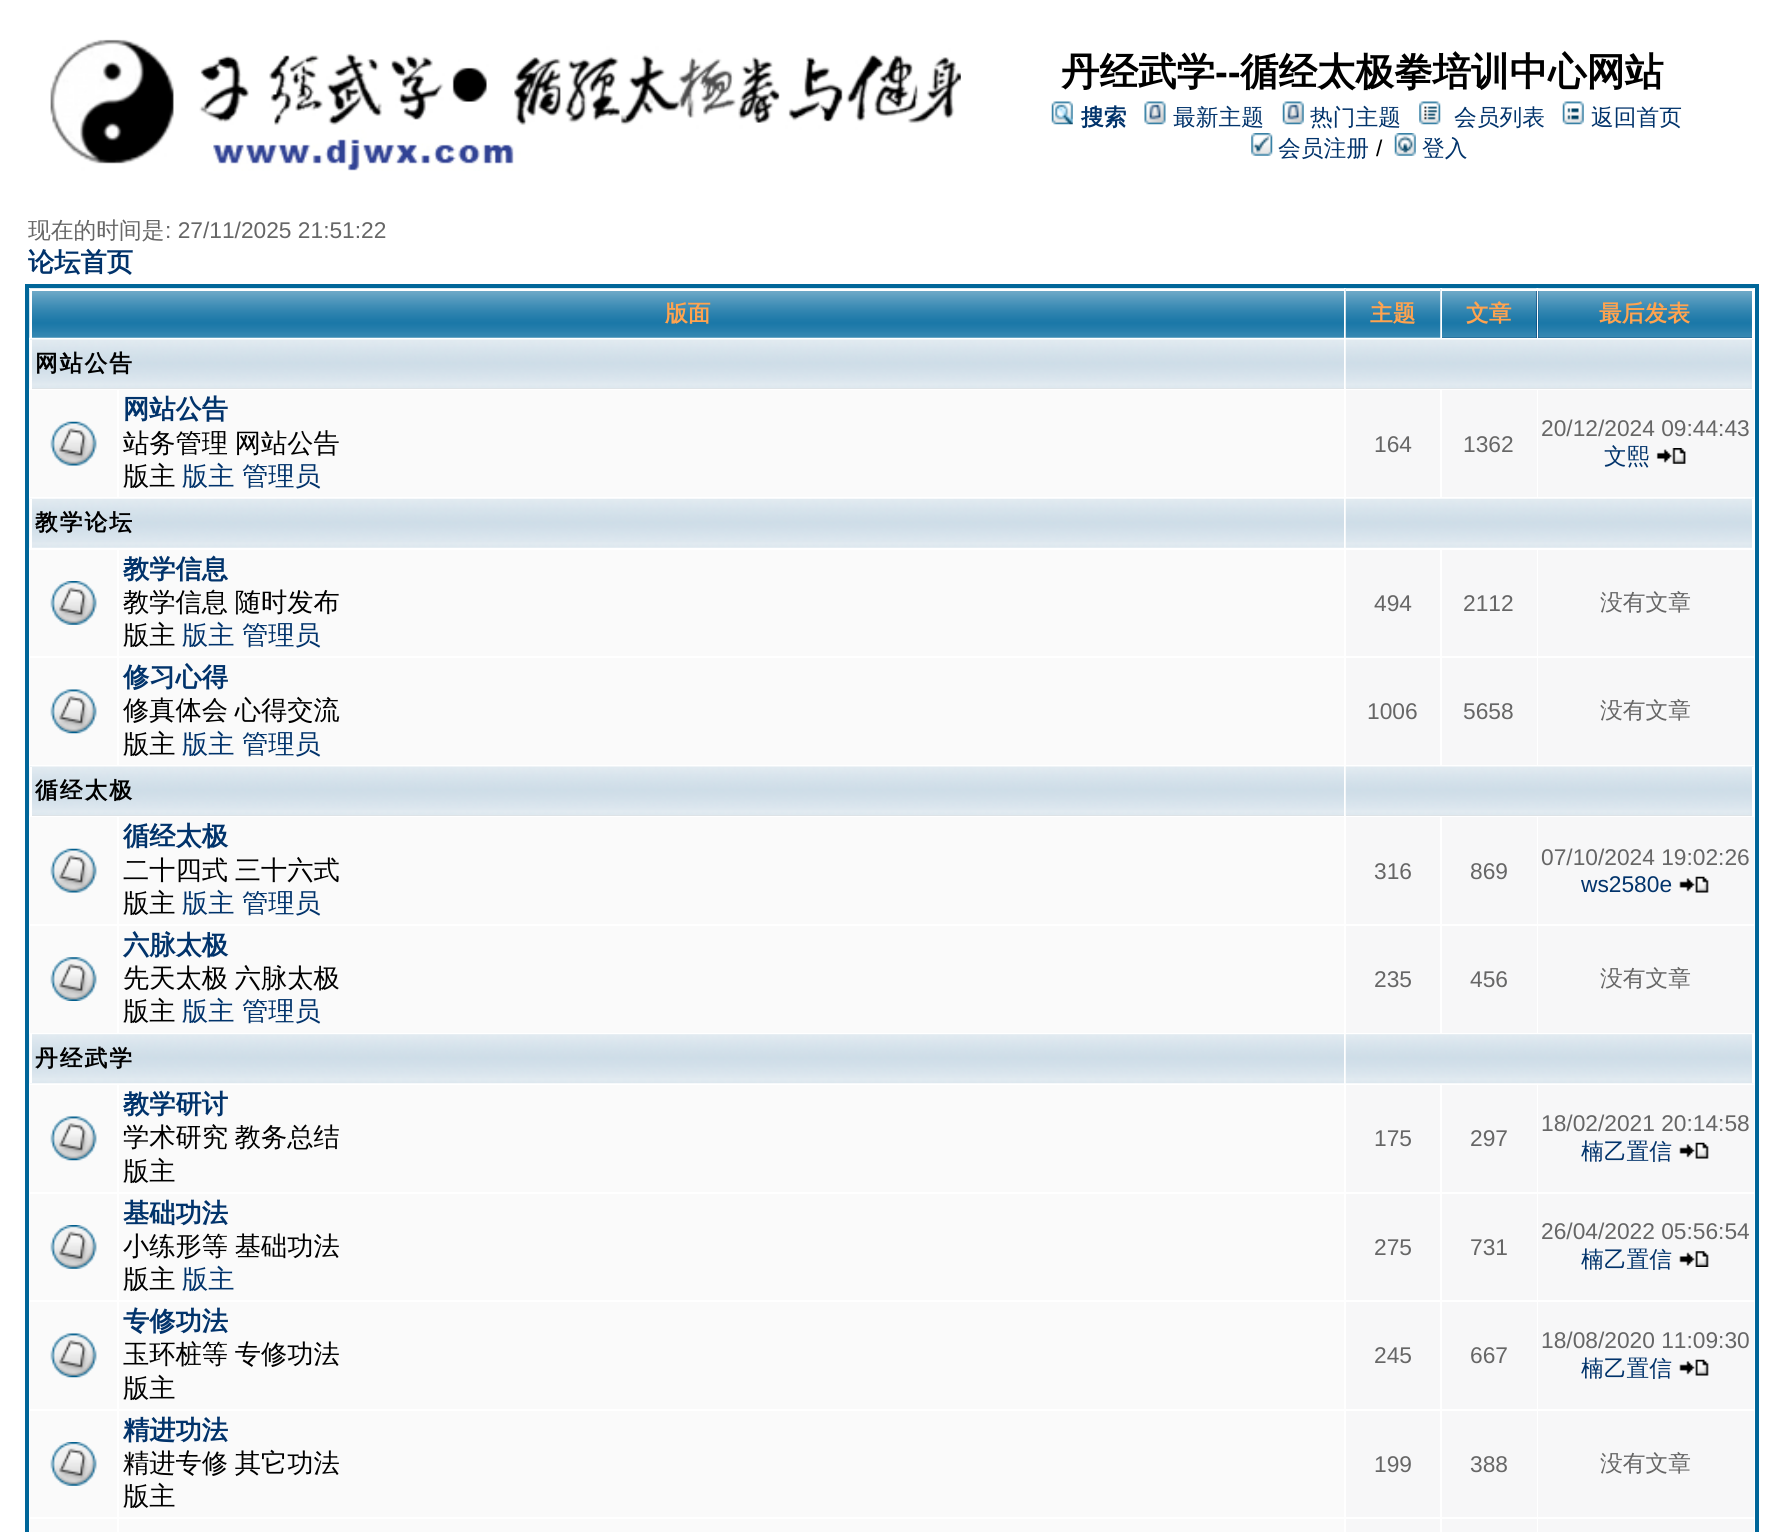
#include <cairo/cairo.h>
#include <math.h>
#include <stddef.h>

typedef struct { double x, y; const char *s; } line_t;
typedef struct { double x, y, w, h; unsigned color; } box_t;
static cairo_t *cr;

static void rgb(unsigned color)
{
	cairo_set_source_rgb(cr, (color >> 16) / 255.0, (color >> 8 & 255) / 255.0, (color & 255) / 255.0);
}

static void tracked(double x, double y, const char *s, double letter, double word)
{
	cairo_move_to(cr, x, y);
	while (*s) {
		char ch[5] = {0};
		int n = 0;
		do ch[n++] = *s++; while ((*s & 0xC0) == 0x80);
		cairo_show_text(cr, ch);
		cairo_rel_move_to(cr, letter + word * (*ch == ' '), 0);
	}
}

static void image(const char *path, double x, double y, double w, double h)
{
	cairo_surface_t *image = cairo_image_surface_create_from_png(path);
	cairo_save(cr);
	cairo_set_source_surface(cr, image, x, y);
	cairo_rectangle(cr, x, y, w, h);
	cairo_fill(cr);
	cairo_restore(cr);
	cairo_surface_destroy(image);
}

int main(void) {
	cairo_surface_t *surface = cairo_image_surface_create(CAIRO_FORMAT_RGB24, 1782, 1532);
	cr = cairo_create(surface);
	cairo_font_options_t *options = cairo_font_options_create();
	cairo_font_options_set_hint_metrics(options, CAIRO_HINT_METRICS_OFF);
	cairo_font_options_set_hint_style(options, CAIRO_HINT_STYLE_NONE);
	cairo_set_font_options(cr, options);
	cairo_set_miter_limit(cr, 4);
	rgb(0xffffff);
	cairo_paint(cr);
	image("img/1.png", 50, 39, 911, 132);
	image("img/2.png", 1051, 101, 22, 24);
	image("img/3.png", 1144, 101, 22, 24);
	image("img/4.png", 1282, 101, 22, 24);
	image("img/5.png", 1419, 101, 22, 24);
	image("img/6.png", 1562, 101, 22, 24);
	image("img/7.png", 1251, 133, 22, 23);
	image("img/8.png", 1394, 133, 22, 23);
	cairo_rectangle(cr, 27, 286, 1730, 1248);
	rgb(0x006699);
	cairo_set_line_width(cr, 4);
	cairo_stroke(cr);
	image("img/9.png", 29, 288, 1315, 50);
	rgb(0xffffff);
	cairo_rectangle(cr, 30, 289, 1314, 2);
	cairo_fill(cr);
	cairo_rectangle(cr, 30, 289, 2, 49);
	cairo_fill(cr);
	image("img/10.png", 1345, 288, 96, 50);
	cairo_rectangle(cr, 1346, 289, 94, 2);
	cairo_fill(cr);
	rgb(0x01336b);
	cairo_rectangle(cr, 1442, 291, 95, 47);
	cairo_fill(cr);
	image("img/11.png", 1442, 288, 95, 50);
	rgb(0xffffff);
	cairo_rectangle(cr, 1442, 289, 95, 2);
	cairo_fill(cr);
	rgb(0x01336b);
	cairo_rectangle(cr, 1538, 291, 214, 47);
	cairo_fill(cr);
	image("img/12.png", 1538, 288, 216, 50);
	{
		static const box_t items[] = {
			{1538, 289, 216, 2, 0xffffff},
			{1752, 289, 2, 49, 0xffffff},
			{32, 388, 1312, 1, 0xdfdfdf},
		};
		for (size_t i = 0; i < sizeof items / sizeof *items; i++) {
			rgb(items[i].color);
			cairo_rectangle(cr, items[i].x, items[i].y, items[i].w, items[i].h);
			cairo_fill(cr);
		}
	}
	image("img/13.png", 29, 339, 1315, 50);
	rgb(0xffffff);
	cairo_rectangle(cr, 30, 340, 2, 49);
	cairo_fill(cr);
	rgb(0xdfdfdf);
	cairo_rectangle(cr, 1346, 388, 406, 1);
	cairo_fill(cr);
	image("img/14.png", 1345, 339, 409, 50);
	rgb(0xffffff);
	cairo_rectangle(cr, 1752, 340, 2, 49);
	cairo_fill(cr);
	rgb(0xfafafa);
	cairo_rectangle(cr, 30, 390, 87, 107);
	cairo_fill(cr);
	image("img/15.png", 50, 421, 47, 45);
	{
		static const box_t items[] = {
			{119, 390, 1225, 107, 0xfafafa},
			{1346, 390, 94, 107, 0xf7f7f8},
			{1442, 390, 95, 107, 0xf7f7f8},
			{1538, 390, 216, 107, 0xf7f7f8},
		};
		for (size_t i = 0; i < sizeof items / sizeof *items; i++) {
			rgb(items[i].color);
			cairo_rectangle(cr, items[i].x, items[i].y, items[i].w, items[i].h);
			cairo_fill(cr);
		}
	}
	image("img/16.png", 1656, 448, 30, 16);
	image("img/17.png", 29, 498, 1315, 50);
	rgb(0xffffff);
	cairo_rectangle(cr, 30, 499, 2, 49);
	cairo_fill(cr);
	image("img/18.png", 1345, 498, 409, 50);
	cairo_rectangle(cr, 1752, 499, 2, 49);
	cairo_fill(cr);
	rgb(0xfafafa);
	cairo_rectangle(cr, 30, 550, 87, 106);
	cairo_fill(cr);
	image("img/19.png", 50, 581, 47, 44);
	{
		static const box_t items[] = {
			{119, 550, 1225, 106, 0xfafafa},
			{1346, 550, 94, 106, 0xf7f7f8},
			{1442, 550, 95, 106, 0xf7f7f8},
			{1538, 550, 216, 106, 0xf7f7f8},
			{30, 658, 87, 107, 0xfafafa},
		};
		for (size_t i = 0; i < sizeof items / sizeof *items; i++) {
			rgb(items[i].color);
			cairo_rectangle(cr, items[i].x, items[i].y, items[i].w, items[i].h);
			cairo_fill(cr);
		}
	}
	image("img/20.png", 50, 689, 47, 45);
	{
		static const box_t items[] = {
			{119, 658, 1225, 107, 0xfafafa},
			{1346, 658, 94, 107, 0xf7f7f8},
			{1442, 658, 95, 107, 0xf7f7f8},
			{1538, 658, 216, 107, 0xf7f7f8},
			{32, 815, 1312, 1, 0xdfdfdf},
		};
		for (size_t i = 0; i < sizeof items / sizeof *items; i++) {
			rgb(items[i].color);
			cairo_rectangle(cr, items[i].x, items[i].y, items[i].w, items[i].h);
			cairo_fill(cr);
		}
	}
	image("img/21.png", 29, 766, 1315, 50);
	rgb(0xffffff);
	cairo_rectangle(cr, 30, 767, 2, 49);
	cairo_fill(cr);
	rgb(0xdfdfdf);
	cairo_rectangle(cr, 1346, 815, 406, 1);
	cairo_fill(cr);
	image("img/22.png", 1345, 766, 409, 50);
	rgb(0xffffff);
	cairo_rectangle(cr, 1752, 767, 2, 49);
	cairo_fill(cr);
	rgb(0xfafafa);
	cairo_rectangle(cr, 30, 817, 87, 107);
	cairo_fill(cr);
	image("img/15.png", 50, 848, 47, 45);
	{
		static const box_t items[] = {
			{119, 817, 1225, 107, 0xfafafa},
			{1346, 817, 94, 107, 0xf7f7f8},
			{1442, 817, 95, 107, 0xf7f7f8},
			{1538, 817, 216, 107, 0xf7f7f8},
		};
		for (size_t i = 0; i < sizeof items / sizeof *items; i++) {
			rgb(items[i].color);
			cairo_rectangle(cr, items[i].x, items[i].y, items[i].w, items[i].h);
			cairo_fill(cr);
		}
	}
	image("img/23.png", 1679, 876, 30, 17);
	rgb(0xfafafa);
	cairo_rectangle(cr, 30, 926, 87, 107);
	cairo_fill(cr);
	image("img/24.png", 50, 957, 47, 44);
	{
		static const box_t items[] = {
			{119, 926, 1225, 107, 0xfafafa},
			{1346, 926, 94, 107, 0xf7f7f8},
			{1442, 926, 95, 107, 0xf7f7f8},
			{1538, 926, 216, 107, 0xf7f7f8},
		};
		for (size_t i = 0; i < sizeof items / sizeof *items; i++) {
			rgb(items[i].color);
			cairo_rectangle(cr, items[i].x, items[i].y, items[i].w, items[i].h);
			cairo_fill(cr);
		}
	}
	image("img/25.png", 29, 1034, 1315, 50);
	rgb(0xffffff);
	cairo_rectangle(cr, 30, 1034, 2, 49);
	cairo_fill(cr);
	image("img/26.png", 1345, 1034, 409, 50);
	cairo_rectangle(cr, 1752, 1034, 2, 49);
	cairo_fill(cr);
	rgb(0xfafafa);
	cairo_rectangle(cr, 30, 1085, 87, 107);
	cairo_fill(cr);
	image("img/20.png", 50, 1116, 47, 45);
	{
		static const box_t items[] = {
			{119, 1085, 1225, 107, 0xfafafa},
			{1346, 1085, 94, 107, 0xf7f7f8},
			{1442, 1085, 95, 107, 0xf7f7f8},
			{1538, 1085, 216, 107, 0xf7f7f8},
		};
		for (size_t i = 0; i < sizeof items / sizeof *items; i++) {
			rgb(items[i].color);
			cairo_rectangle(cr, items[i].x, items[i].y, items[i].w, items[i].h);
			cairo_fill(cr);
		}
	}
	image("img/23.png", 1679, 1142, 30, 17);
	rgb(0xfafafa);
	cairo_rectangle(cr, 30, 1194, 87, 106);
	cairo_fill(cr);
	image("img/19.png", 50, 1225, 47, 44);
	{
		static const box_t items[] = {
			{119, 1194, 1225, 106, 0xfafafa},
			{1346, 1194, 94, 106, 0xf7f7f8},
			{1442, 1194, 95, 106, 0xf7f7f8},
			{1538, 1194, 216, 106, 0xf7f7f8},
		};
		for (size_t i = 0; i < sizeof items / sizeof *items; i++) {
			rgb(items[i].color);
			cairo_rectangle(cr, items[i].x, items[i].y, items[i].w, items[i].h);
			cairo_fill(cr);
		}
	}
	image("img/27.png", 1679, 1251, 30, 16);
	rgb(0xfafafa);
	cairo_rectangle(cr, 30, 1302, 87, 107);
	cairo_fill(cr);
	image("img/20.png", 50, 1333, 47, 45);
	{
		static const box_t items[] = {
			{119, 1302, 1225, 107, 0xfafafa},
			{1346, 1302, 94, 107, 0xf7f7f8},
			{1442, 1302, 95, 107, 0xf7f7f8},
			{1538, 1302, 216, 107, 0xf7f7f8},
		};
		for (size_t i = 0; i < sizeof items / sizeof *items; i++) {
			rgb(items[i].color);
			cairo_rectangle(cr, items[i].x, items[i].y, items[i].w, items[i].h);
			cairo_fill(cr);
		}
	}
	image("img/23.png", 1679, 1359, 30, 17);
	rgb(0xfafafa);
	cairo_rectangle(cr, 30, 1411, 87, 106);
	cairo_fill(cr);
	image("img/19.png", 50, 1442, 47, 44);
	{
		static const box_t items[] = {
			{119, 1411, 1225, 106, 0xfafafa},
			{1346, 1411, 94, 106, 0xf7f7f8},
			{1442, 1411, 95, 106, 0xf7f7f8},
			{1538, 1411, 216, 106, 0xf7f7f8},
			{30, 1519, 87, 13, 0xfafafa},
			{119, 1519, 1225, 13, 0xfafafa},
			{1346, 1519, 94, 13, 0xf7f7f8},
			{1442, 1519, 95, 13, 0xf7f7f8},
			{1538, 1519, 216, 13, 0xf7f7f8},
		};
		for (size_t i = 0; i < sizeof items / sizeof *items; i++) {
			rgb(items[i].color);
			cairo_rectangle(cr, items[i].x, items[i].y, items[i].w, items[i].h);
			cairo_fill(cr);
		}
	}
	cairo_select_font_face(cr, "WenQuanYi Zen Hei", CAIRO_FONT_SLANT_NORMAL, CAIRO_FONT_WEIGHT_BOLD);
	cairo_set_font_size(cr, 38.5);
	rgb(0x000000);
	cairo_move_to(cr, 1061, 85);
	cairo_show_text(cr, "丹经武学");
	cairo_select_font_face(cr, "Liberation Sans", CAIRO_FONT_SLANT_NORMAL, CAIRO_FONT_WEIGHT_BOLD);
	cairo_move_to(cr, 1215, 85);
	cairo_show_text(cr, "--");
	cairo_select_font_face(cr, "WenQuanYi Zen Hei", CAIRO_FONT_SLANT_NORMAL, CAIRO_FONT_WEIGHT_BOLD);
	cairo_move_to(cr, 1240, 85);
	cairo_show_text(cr, "循经太极拳培训中心网站");
	cairo_set_font_size(cr, 22.75);
	rgb(0x01336b);
	cairo_move_to(cr, 1081, 125);
	cairo_show_text(cr, "搜索");
	cairo_select_font_face(cr, "WenQuanYi Zen Hei Medium", CAIRO_FONT_SLANT_NORMAL, CAIRO_FONT_WEIGHT_NORMAL);
	{
		static const line_t items[] = {
			{1173, 125, "最新主题"},
			{1310, 125, "热门主题"},
			{1454, 125, "会员列表"},
			{1591, 125, "返回首页"},
			{1278, 156, "会员注册"},
		};
		for (size_t i = 0; i < sizeof items / sizeof *items; i++) {
			cairo_move_to(cr, items[i].x, items[i].y);
			cairo_show_text(cr, items[i].s);
		}
	}
	cairo_select_font_face(cr, "Liberation Sans", CAIRO_FONT_SLANT_NORMAL, CAIRO_FONT_WEIGHT_NORMAL);
	rgb(0x000000);
	cairo_move_to(cr, 1376, 156);
	cairo_show_text(cr, "/");
	cairo_select_font_face(cr, "WenQuanYi Zen Hei Medium", CAIRO_FONT_SLANT_NORMAL, CAIRO_FONT_WEIGHT_NORMAL);
	rgb(0x01336b);
	cairo_move_to(cr, 1422, 156);
	cairo_show_text(cr, "登入");
	rgb(0x666666);
	cairo_move_to(cr, 28, 238);
	cairo_show_text(cr, "现在的时间是");
	cairo_select_font_face(cr, "Liberation Sans", CAIRO_FONT_SLANT_NORMAL, CAIRO_FONT_WEIGHT_NORMAL);
	cairo_move_to(cr, 165, 238);
	cairo_show_text(cr, ": 27/11/2025 21:51:22");
	cairo_select_font_face(cr, "WenQuanYi Zen Hei", CAIRO_FONT_SLANT_NORMAL, CAIRO_FONT_WEIGHT_BOLD);
	cairo_set_font_size(cr, 26.25);
	rgb(0x01336b);
	cairo_move_to(cr, 28, 271);
	cairo_show_text(cr, "论坛首页");
	cairo_set_font_size(cr, 22.75);
	rgb(0xffa34f);
	{
		static const line_t items[] = {
			{665, 321, "版面"},
			{1370, 321, "主题"},
			{1466, 321, "文章"},
			{1599, 321, "最后发表"},
		};
		for (size_t i = 0; i < sizeof items / sizeof *items; i++) {
			cairo_move_to(cr, items[i].x, items[i].y);
			cairo_show_text(cr, items[i].s);
		}
	}
	rgb(0x000000);
	tracked(35, 371, "网站公告", 2, 0);
	cairo_set_font_size(cr, 26.25);
	rgb(0x01336b);
	cairo_move_to(cr, 123, 418);
	cairo_show_text(cr, "网站公告");
	cairo_select_font_face(cr, "WenQuanYi Zen Hei Medium", CAIRO_FONT_SLANT_NORMAL, CAIRO_FONT_WEIGHT_NORMAL);
	rgb(0x000000);
	tracked(123, 452, "站务管理 网站公告", 0, -1);
	cairo_move_to(cr, 123, 485);
	cairo_show_text(cr, "版主");
	rgb(0x01336b);
	cairo_move_to(cr, 182, 485);
	cairo_show_text(cr, "版主");
	cairo_move_to(cr, 242, 485);
	cairo_show_text(cr, "管理员");
	cairo_select_font_face(cr, "Liberation Sans", CAIRO_FONT_SLANT_NORMAL, CAIRO_FONT_WEIGHT_NORMAL);
	cairo_set_font_size(cr, 22.75);
	rgb(0x666666);
	{
		static const line_t items[] = {
			{1374, 452, "164"},
			{1463, 452, "1362"},
			{1541, 436, "20/12/2024 09:44:43"},
		};
		for (size_t i = 0; i < sizeof items / sizeof *items; i++) {
			cairo_move_to(cr, items[i].x, items[i].y);
			cairo_show_text(cr, items[i].s);
		}
	}
	cairo_select_font_face(cr, "WenQuanYi Zen Hei Medium", CAIRO_FONT_SLANT_NORMAL, CAIRO_FONT_WEIGHT_NORMAL);
	rgb(0x01336b);
	cairo_move_to(cr, 1604, 464);
	cairo_show_text(cr, "文熙");
	cairo_select_font_face(cr, "WenQuanYi Zen Hei", CAIRO_FONT_SLANT_NORMAL, CAIRO_FONT_WEIGHT_BOLD);
	rgb(0x000000);
	tracked(35, 530, "教学论坛", 2, 0);
	cairo_set_font_size(cr, 26.25);
	rgb(0x01336b);
	cairo_move_to(cr, 123, 578);
	cairo_show_text(cr, "教学信息");
	cairo_select_font_face(cr, "WenQuanYi Zen Hei Medium", CAIRO_FONT_SLANT_NORMAL, CAIRO_FONT_WEIGHT_NORMAL);
	rgb(0x000000);
	tracked(123, 611, "教学信息 随时发布", 0, -1);
	cairo_move_to(cr, 123, 644);
	cairo_show_text(cr, "版主");
	rgb(0x01336b);
	cairo_move_to(cr, 182, 644);
	cairo_show_text(cr, "版主");
	cairo_move_to(cr, 242, 644);
	cairo_show_text(cr, "管理员");
	cairo_select_font_face(cr, "Liberation Sans", CAIRO_FONT_SLANT_NORMAL, CAIRO_FONT_WEIGHT_NORMAL);
	cairo_set_font_size(cr, 22.75);
	rgb(0x666666);
	cairo_move_to(cr, 1374, 611);
	cairo_show_text(cr, "494");
	cairo_move_to(cr, 1463, 611);
	cairo_show_text(cr, "2112");
	cairo_select_font_face(cr, "WenQuanYi Zen Hei Medium", CAIRO_FONT_SLANT_NORMAL, CAIRO_FONT_WEIGHT_NORMAL);
	cairo_move_to(cr, 1600, 610);
	cairo_show_text(cr, "没有文章");
	cairo_select_font_face(cr, "WenQuanYi Zen Hei", CAIRO_FONT_SLANT_NORMAL, CAIRO_FONT_WEIGHT_BOLD);
	cairo_set_font_size(cr, 26.25);
	rgb(0x01336b);
	cairo_move_to(cr, 123, 686);
	cairo_show_text(cr, "修习心得");
	cairo_select_font_face(cr, "WenQuanYi Zen Hei Medium", CAIRO_FONT_SLANT_NORMAL, CAIRO_FONT_WEIGHT_NORMAL);
	rgb(0x000000);
	tracked(123, 719, "修真体会 心得交流", 0, -1);
	cairo_move_to(cr, 123, 753);
	cairo_show_text(cr, "版主");
	rgb(0x01336b);
	cairo_move_to(cr, 182, 753);
	cairo_show_text(cr, "版主");
	cairo_move_to(cr, 242, 753);
	cairo_show_text(cr, "管理员");
	cairo_select_font_face(cr, "Liberation Sans", CAIRO_FONT_SLANT_NORMAL, CAIRO_FONT_WEIGHT_NORMAL);
	cairo_set_font_size(cr, 22.75);
	rgb(0x666666);
	cairo_move_to(cr, 1367, 719);
	cairo_show_text(cr, "1006");
	cairo_move_to(cr, 1463, 719);
	cairo_show_text(cr, "5658");
	cairo_select_font_face(cr, "WenQuanYi Zen Hei Medium", CAIRO_FONT_SLANT_NORMAL, CAIRO_FONT_WEIGHT_NORMAL);
	cairo_move_to(cr, 1600, 718);
	cairo_show_text(cr, "没有文章");
	cairo_select_font_face(cr, "WenQuanYi Zen Hei", CAIRO_FONT_SLANT_NORMAL, CAIRO_FONT_WEIGHT_BOLD);
	rgb(0x000000);
	tracked(35, 798, "循经太极", 2, 0);
	cairo_set_font_size(cr, 26.25);
	rgb(0x01336b);
	cairo_move_to(cr, 123, 845);
	cairo_show_text(cr, "循经太极");
	cairo_select_font_face(cr, "WenQuanYi Zen Hei Medium", CAIRO_FONT_SLANT_NORMAL, CAIRO_FONT_WEIGHT_NORMAL);
	rgb(0x000000);
	tracked(123, 879, "二十四式 三十六式", 0, -1);
	cairo_move_to(cr, 123, 912);
	cairo_show_text(cr, "版主");
	rgb(0x01336b);
	cairo_move_to(cr, 182, 912);
	cairo_show_text(cr, "版主");
	cairo_move_to(cr, 242, 912);
	cairo_show_text(cr, "管理员");
	cairo_select_font_face(cr, "Liberation Sans", CAIRO_FONT_SLANT_NORMAL, CAIRO_FONT_WEIGHT_NORMAL);
	cairo_set_font_size(cr, 22.75);
	rgb(0x666666);
	{
		static const line_t items[] = {
			{1374, 879, "316"},
			{1470, 879, "869"},
			{1541, 865, "07/10/2024 19:02:26"},
		};
		for (size_t i = 0; i < sizeof items / sizeof *items; i++) {
			cairo_move_to(cr, items[i].x, items[i].y);
			cairo_show_text(cr, items[i].s);
		}
	}
	rgb(0x01336b);
	cairo_move_to(cr, 1581, 892);
	cairo_show_text(cr, "ws2580e");
	cairo_select_font_face(cr, "WenQuanYi Zen Hei", CAIRO_FONT_SLANT_NORMAL, CAIRO_FONT_WEIGHT_BOLD);
	cairo_set_font_size(cr, 26.25);
	cairo_move_to(cr, 123, 954);
	cairo_show_text(cr, "六脉太极");
	cairo_select_font_face(cr, "WenQuanYi Zen Hei Medium", CAIRO_FONT_SLANT_NORMAL, CAIRO_FONT_WEIGHT_NORMAL);
	rgb(0x000000);
	tracked(123, 987, "先天太极 六脉太极", 0, -1);
	cairo_move_to(cr, 123, 1020);
	cairo_show_text(cr, "版主");
	rgb(0x01336b);
	cairo_move_to(cr, 182, 1020);
	cairo_show_text(cr, "版主");
	cairo_move_to(cr, 242, 1020);
	cairo_show_text(cr, "管理员");
	cairo_select_font_face(cr, "Liberation Sans", CAIRO_FONT_SLANT_NORMAL, CAIRO_FONT_WEIGHT_NORMAL);
	cairo_set_font_size(cr, 22.75);
	rgb(0x666666);
	cairo_move_to(cr, 1374, 987);
	cairo_show_text(cr, "235");
	cairo_move_to(cr, 1470, 987);
	cairo_show_text(cr, "456");
	cairo_select_font_face(cr, "WenQuanYi Zen Hei Medium", CAIRO_FONT_SLANT_NORMAL, CAIRO_FONT_WEIGHT_NORMAL);
	cairo_move_to(cr, 1600, 986);
	cairo_show_text(cr, "没有文章");
	cairo_select_font_face(cr, "WenQuanYi Zen Hei", CAIRO_FONT_SLANT_NORMAL, CAIRO_FONT_WEIGHT_BOLD);
	rgb(0x000000);
	tracked(35, 1066, "丹经武学", 2, 0);
	cairo_set_font_size(cr, 26.25);
	rgb(0x01336b);
	cairo_move_to(cr, 123, 1113);
	cairo_show_text(cr, "教学研讨");
	cairo_select_font_face(cr, "WenQuanYi Zen Hei Medium", CAIRO_FONT_SLANT_NORMAL, CAIRO_FONT_WEIGHT_NORMAL);
	rgb(0x000000);
	tracked(123, 1146, "学术研究 教务总结", 0, -1);
	cairo_move_to(cr, 123, 1180);
	cairo_show_text(cr, "版主");
	cairo_select_font_face(cr, "Liberation Sans", CAIRO_FONT_SLANT_NORMAL, CAIRO_FONT_WEIGHT_NORMAL);
	cairo_set_font_size(cr, 22.75);
	rgb(0x666666);
	{
		static const line_t items[] = {
			{1374, 1146, "175"},
			{1470, 1146, "297"},
			{1541, 1131, "18/02/2021 20:14:58"},
		};
		for (size_t i = 0; i < sizeof items / sizeof *items; i++) {
			cairo_move_to(cr, items[i].x, items[i].y);
			cairo_show_text(cr, items[i].s);
		}
	}
	cairo_select_font_face(cr, "WenQuanYi Zen Hei Medium", CAIRO_FONT_SLANT_NORMAL, CAIRO_FONT_WEIGHT_NORMAL);
	rgb(0x01336b);
	cairo_move_to(cr, 1581, 1159);
	cairo_show_text(cr, "楠乙置信");
	cairo_select_font_face(cr, "WenQuanYi Zen Hei", CAIRO_FONT_SLANT_NORMAL, CAIRO_FONT_WEIGHT_BOLD);
	cairo_set_font_size(cr, 26.25);
	cairo_move_to(cr, 123, 1222);
	cairo_show_text(cr, "基础功法");
	cairo_select_font_face(cr, "WenQuanYi Zen Hei Medium", CAIRO_FONT_SLANT_NORMAL, CAIRO_FONT_WEIGHT_NORMAL);
	rgb(0x000000);
	tracked(123, 1255, "小练形等 基础功法", 0, -1);
	cairo_move_to(cr, 123, 1288);
	cairo_show_text(cr, "版主");
	rgb(0x01336b);
	cairo_move_to(cr, 182, 1288);
	cairo_show_text(cr, "版主");
	cairo_select_font_face(cr, "Liberation Sans", CAIRO_FONT_SLANT_NORMAL, CAIRO_FONT_WEIGHT_NORMAL);
	cairo_set_font_size(cr, 22.75);
	rgb(0x666666);
	{
		static const line_t items[] = {
			{1374, 1255, "275"},
			{1470, 1255, "731"},
			{1541, 1239, "26/04/2022 05:56:54"},
		};
		for (size_t i = 0; i < sizeof items / sizeof *items; i++) {
			cairo_move_to(cr, items[i].x, items[i].y);
			cairo_show_text(cr, items[i].s);
		}
	}
	cairo_select_font_face(cr, "WenQuanYi Zen Hei Medium", CAIRO_FONT_SLANT_NORMAL, CAIRO_FONT_WEIGHT_NORMAL);
	rgb(0x01336b);
	cairo_move_to(cr, 1581, 1267);
	cairo_show_text(cr, "楠乙置信");
	cairo_select_font_face(cr, "WenQuanYi Zen Hei", CAIRO_FONT_SLANT_NORMAL, CAIRO_FONT_WEIGHT_BOLD);
	cairo_set_font_size(cr, 26.25);
	cairo_move_to(cr, 123, 1330);
	cairo_show_text(cr, "专修功法");
	cairo_select_font_face(cr, "WenQuanYi Zen Hei Medium", CAIRO_FONT_SLANT_NORMAL, CAIRO_FONT_WEIGHT_NORMAL);
	rgb(0x000000);
	tracked(123, 1363, "玉环桩等 专修功法", 0, -1);
	cairo_move_to(cr, 123, 1397);
	cairo_show_text(cr, "版主");
	cairo_select_font_face(cr, "Liberation Sans", CAIRO_FONT_SLANT_NORMAL, CAIRO_FONT_WEIGHT_NORMAL);
	cairo_set_font_size(cr, 22.75);
	rgb(0x666666);
	{
		static const line_t items[] = {
			{1374, 1363, "245"},
			{1470, 1363, "667"},
			{1541, 1348, "18/08/2020 11:09:30"},
		};
		for (size_t i = 0; i < sizeof items / sizeof *items; i++) {
			cairo_move_to(cr, items[i].x, items[i].y);
			cairo_show_text(cr, items[i].s);
		}
	}
	cairo_select_font_face(cr, "WenQuanYi Zen Hei Medium", CAIRO_FONT_SLANT_NORMAL, CAIRO_FONT_WEIGHT_NORMAL);
	rgb(0x01336b);
	cairo_move_to(cr, 1581, 1376);
	cairo_show_text(cr, "楠乙置信");
	cairo_select_font_face(cr, "WenQuanYi Zen Hei", CAIRO_FONT_SLANT_NORMAL, CAIRO_FONT_WEIGHT_BOLD);
	cairo_set_font_size(cr, 26.25);
	cairo_move_to(cr, 123, 1439);
	cairo_show_text(cr, "精进功法");
	cairo_select_font_face(cr, "WenQuanYi Zen Hei Medium", CAIRO_FONT_SLANT_NORMAL, CAIRO_FONT_WEIGHT_NORMAL);
	rgb(0x000000);
	tracked(123, 1472, "精进专修 其它功法", 0, -1);
	cairo_move_to(cr, 123, 1505);
	cairo_show_text(cr, "版主");
	cairo_select_font_face(cr, "Liberation Sans", CAIRO_FONT_SLANT_NORMAL, CAIRO_FONT_WEIGHT_NORMAL);
	cairo_set_font_size(cr, 22.75);
	rgb(0x666666);
	cairo_move_to(cr, 1374, 1472);
	cairo_show_text(cr, "199");
	cairo_move_to(cr, 1470, 1472);
	cairo_show_text(cr, "388");
	cairo_select_font_face(cr, "WenQuanYi Zen Hei Medium", CAIRO_FONT_SLANT_NORMAL, CAIRO_FONT_WEIGHT_NORMAL);
	cairo_move_to(cr, 1600, 1471);
	cairo_show_text(cr, "没有文章");
	cairo_surface_write_to_png(surface, "page.png");
	cairo_font_options_destroy(options);
	cairo_destroy(cr);
	cairo_surface_destroy(surface);
	return 0;
}
